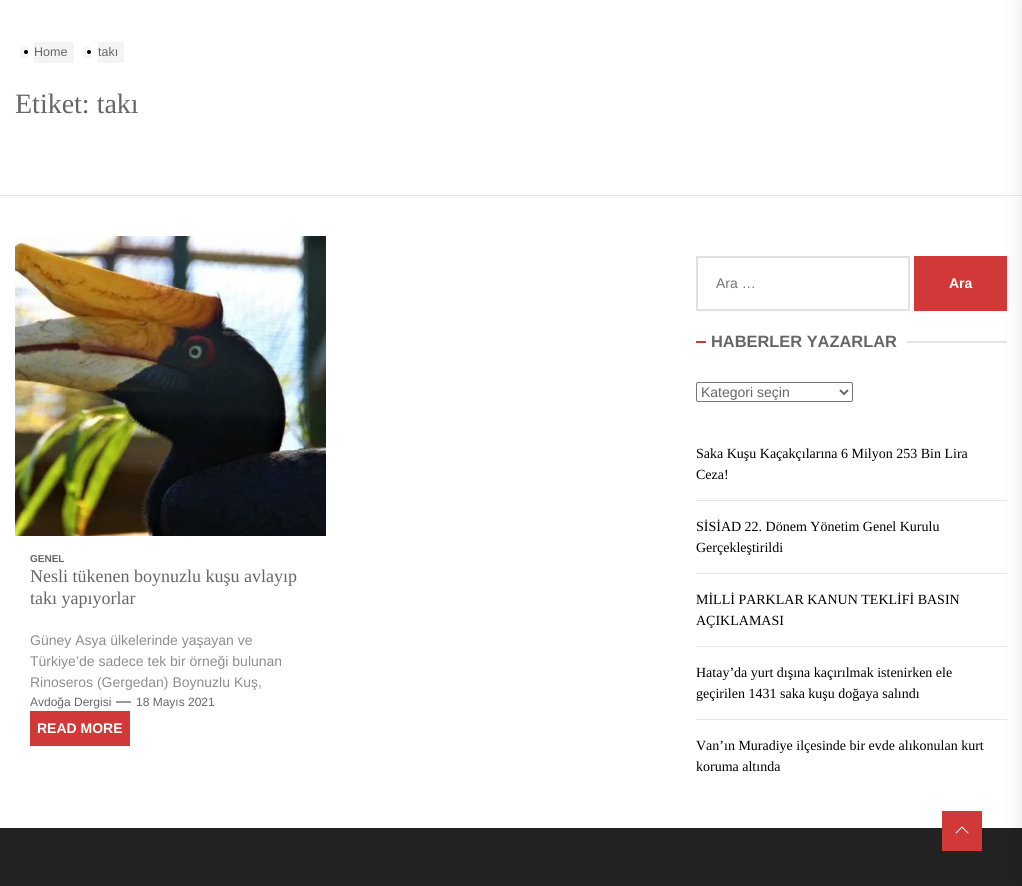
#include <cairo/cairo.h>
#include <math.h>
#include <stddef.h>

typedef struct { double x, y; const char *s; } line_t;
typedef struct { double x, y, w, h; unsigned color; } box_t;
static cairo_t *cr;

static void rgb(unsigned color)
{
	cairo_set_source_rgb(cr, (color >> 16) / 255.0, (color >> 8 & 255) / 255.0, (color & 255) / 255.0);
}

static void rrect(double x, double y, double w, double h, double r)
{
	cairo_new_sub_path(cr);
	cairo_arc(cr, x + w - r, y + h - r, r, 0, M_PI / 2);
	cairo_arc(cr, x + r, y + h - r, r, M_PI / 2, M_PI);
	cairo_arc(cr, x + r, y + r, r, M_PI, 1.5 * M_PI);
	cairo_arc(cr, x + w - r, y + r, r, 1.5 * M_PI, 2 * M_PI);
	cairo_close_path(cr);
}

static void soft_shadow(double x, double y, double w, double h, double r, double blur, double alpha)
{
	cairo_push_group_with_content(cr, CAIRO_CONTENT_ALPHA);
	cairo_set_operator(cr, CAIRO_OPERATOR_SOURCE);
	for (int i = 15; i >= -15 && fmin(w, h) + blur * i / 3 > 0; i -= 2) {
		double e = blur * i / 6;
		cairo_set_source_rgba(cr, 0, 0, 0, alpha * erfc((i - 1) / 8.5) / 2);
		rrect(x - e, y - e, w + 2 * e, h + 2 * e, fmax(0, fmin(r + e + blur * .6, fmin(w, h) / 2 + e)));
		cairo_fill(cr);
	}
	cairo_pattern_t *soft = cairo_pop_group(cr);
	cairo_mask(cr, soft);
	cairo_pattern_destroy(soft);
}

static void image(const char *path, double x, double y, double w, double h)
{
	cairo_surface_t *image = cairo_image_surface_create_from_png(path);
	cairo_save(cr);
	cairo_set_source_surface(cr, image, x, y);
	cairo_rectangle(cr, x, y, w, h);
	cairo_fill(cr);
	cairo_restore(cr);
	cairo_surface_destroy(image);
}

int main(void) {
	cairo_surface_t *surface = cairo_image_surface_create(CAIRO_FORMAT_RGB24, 1022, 886);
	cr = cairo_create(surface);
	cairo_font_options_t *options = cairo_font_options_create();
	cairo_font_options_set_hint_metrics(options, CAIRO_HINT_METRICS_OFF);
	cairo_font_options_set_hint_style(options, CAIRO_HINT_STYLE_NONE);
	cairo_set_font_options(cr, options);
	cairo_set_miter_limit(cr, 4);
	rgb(0xffffff);
	cairo_paint(cr);
	rgb(0xe6e6e6);
	cairo_rectangle(cr, 0, 195, 1022, 1);
	cairo_fill(cr);
	rgb(0xf4f4f4);
	cairo_new_path(cr);
	cairo_move_to(cr, 22, 47);
	cairo_line_to(cr, 28, 47);
	cairo_line_to(cr, 28, 58);
	cairo_line_to(cr, 22, 58);
	cairo_curve_to(cr, 21, 58, 20, 57, 20, 56);
	cairo_line_to(cr, 20, 49);
	cairo_curve_to(cr, 20, 48, 21, 47, 22, 47);
	cairo_close_path(cr);
	cairo_fill(cr);
	cairo_new_path(cr);
	cairo_move_to(cr, 34, 42);
	cairo_line_to(cr, 72, 42);
	cairo_curve_to(cr, 73, 42, 74, 43, 74, 44);
	cairo_line_to(cr, 74, 61);
	cairo_curve_to(cr, 74, 62, 73, 63, 72, 63);
	cairo_line_to(cr, 34, 63);
	cairo_close_path(cr);
	cairo_fill(cr);
	rgb(0x000000);
	cairo_arc(cr, 26, 52, 2, 0, 2 * M_PI);
	cairo_fill(cr);
	rgb(0xf4f4f4);
	cairo_new_path(cr);
	cairo_move_to(cr, 85, 47);
	cairo_line_to(cr, 91, 47);
	cairo_line_to(cr, 91, 58);
	cairo_line_to(cr, 85, 58);
	cairo_curve_to(cr, 84, 58, 83, 57, 83, 56);
	cairo_line_to(cr, 83, 49);
	cairo_curve_to(cr, 83, 48, 84, 47, 85, 47);
	cairo_close_path(cr);
	cairo_fill(cr);
	cairo_new_path(cr);
	cairo_move_to(cr, 98, 42);
	cairo_line_to(cr, 122, 42);
	cairo_curve_to(cr, 123, 42, 124, 43, 124, 44);
	cairo_line_to(cr, 124, 61);
	cairo_curve_to(cr, 124, 62, 123, 63, 122, 63);
	cairo_line_to(cr, 98, 63);
	cairo_close_path(cr);
	cairo_fill(cr);
	rgb(0x000000);
	cairo_arc(cr, 89, 52, 2, 0, 2 * M_PI);
	cairo_fill(cr);
	image("img/1.png", 15, 236, 311, 300);
	rgb(0x999999);
	cairo_rectangle(cr, 116, 701, 15, 2);
	cairo_fill(cr);
	rgb(0xd13938);
	cairo_rectangle(cr, 30, 711, 100, 35);
	cairo_fill(cr);
	cairo_rectangle(cr, 697, 257, 212, 53);
	rgb(0xe1e1e3);
	cairo_stroke(cr);
	{
		static const box_t items[] = {
			{914, 256, 93, 55, 0xd13938},
			{696, 341, 10, 2, 0xd13938},
			{907, 341, 100, 2, 0xe5e5e5},
		};
		for (size_t i = 0; i < sizeof items / sizeof *items; i++) {
			rgb(items[i].color);
			cairo_rectangle(cr, items[i].x, items[i].y, items[i].w, items[i].h);
			cairo_fill(cr);
		}
	}
	rrect(696.5, 382.5, 156, 19, 1.5);
	rgb(0x767676);
	cairo_set_line_width(cr, 1);
	cairo_stroke(cr);
	cairo_new_path(cr);
	cairo_move_to(cr, 840, 390);
	cairo_line_to(cr, 844, 394);
	cairo_line_to(cr, 848, 390);
	rgb(0x666666);
	cairo_set_line_width(cr, 2);
	cairo_stroke(cr);
	{
		static const box_t items[] = {
			{696, 500, 311, 1, 0xe6e6e6},
			{696, 573, 311, 1, 0xe6e6e6},
			{696, 646, 311, 1, 0xe6e6e6},
			{696, 719, 311, 1, 0xe6e6e6},
			{0, 828, 1022, 58, 0x222222},
		};
		for (size_t i = 0; i < sizeof items / sizeof *items; i++) {
			rgb(items[i].color);
			cairo_rectangle(cr, items[i].x, items[i].y, items[i].w, items[i].h);
			cairo_fill(cr);
		}
	}
	rgb(0x000000);
	soft_shadow(1022, 0, 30, 886, 0, 10, 0.1);
	rgb(0xd13938);
	cairo_rectangle(cr, 942, 811, 40, 40);
	cairo_fill(cr);
	image("img/2.png", 955, 826, 14, 8);
	cairo_select_font_face(cr, "Liberation Sans", CAIRO_FONT_SLANT_NORMAL, CAIRO_FONT_WEIGHT_NORMAL);
	cairo_set_font_size(cr, 12.5);
	rgb(0x666666);
	cairo_move_to(cr, 34, 56);
	cairo_show_text(cr, "Home");
	cairo_move_to(cr, 98, 56);
	cairo_show_text(cr, "takı");
	cairo_select_font_face(cr, "Liberation Serif", CAIRO_FONT_SLANT_NORMAL, CAIRO_FONT_WEIGHT_NORMAL);
	cairo_set_font_size(cr, 28);
	cairo_move_to(cr, 15, 113);
	cairo_show_text(cr, "Etiket: takı");
	cairo_select_font_face(cr, "Liberation Sans", CAIRO_FONT_SLANT_NORMAL, CAIRO_FONT_WEIGHT_BOLD);
	cairo_set_font_size(cr, 10);
	cairo_move_to(cr, 30, 562);
	cairo_show_text(cr, "GENEL");
	cairo_select_font_face(cr, "Liberation Serif", CAIRO_FONT_SLANT_NORMAL, CAIRO_FONT_WEIGHT_NORMAL);
	cairo_set_font_size(cr, 18);
	cairo_move_to(cr, 30, 582);
	cairo_show_text(cr, "Nesli tükenen boynuzlu kuşu avlayıp");
	cairo_move_to(cr, 30, 604);
	cairo_show_text(cr, "takı yapıyorlar");
	cairo_select_font_face(cr, "Liberation Sans", CAIRO_FONT_SLANT_NORMAL, CAIRO_FONT_WEIGHT_NORMAL);
	cairo_set_font_size(cr, 14);
	rgb(0x8e8e8e);
	{
		static const line_t items[] = {
			{30, 645, "Güney Asya ülkelerinde yaşayan ve"},
			{30, 666, "Türkiye’de sadece tek bir örneği bulunan"},
			{30, 687, "Rinoseros (Gergedan) Boynuzlu Kuş,"},
		};
		for (size_t i = 0; i < sizeof items / sizeof *items; i++) {
			cairo_move_to(cr, items[i].x, items[i].y);
			cairo_show_text(cr, items[i].s);
		}
	}
	cairo_set_font_size(cr, 12);
	rgb(0x666666);
	cairo_move_to(cr, 30, 706);
	cairo_show_text(cr, "Avdoğa Dergisi");
	cairo_move_to(cr, 136, 706);
	cairo_show_text(cr, "18 Mayıs 2021");
	cairo_select_font_face(cr, "Liberation Sans", CAIRO_FONT_SLANT_NORMAL, CAIRO_FONT_WEIGHT_BOLD);
	cairo_set_font_size(cr, 14);
	rgb(0xffffff);
	cairo_move_to(cr, 37, 733);
	cairo_show_text(cr, "READ MORE");
	cairo_select_font_face(cr, "Liberation Sans", CAIRO_FONT_SLANT_NORMAL, CAIRO_FONT_WEIGHT_NORMAL);
	rgb(0x757575);
	cairo_move_to(cr, 716, 288);
	cairo_show_text(cr, "Ara …");
	cairo_select_font_face(cr, "Liberation Sans", CAIRO_FONT_SLANT_NORMAL, CAIRO_FONT_WEIGHT_BOLD);
	rgb(0xffffff);
	cairo_move_to(cr, 949, 288);
	cairo_show_text(cr, "Ara");
	cairo_set_font_size(cr, 16.4);
	rgb(0x666666);
	cairo_move_to(cr, 711, 347);
	cairo_show_text(cr, "HABERLER YAZARLAR");
	cairo_select_font_face(cr, "Liberation Sans", CAIRO_FONT_SLANT_NORMAL, CAIRO_FONT_WEIGHT_NORMAL);
	cairo_set_font_size(cr, 14);
	cairo_move_to(cr, 701, 397);
	cairo_show_text(cr, "Kategori seçin");
	cairo_select_font_face(cr, "Liberation Serif", CAIRO_FONT_SLANT_NORMAL, CAIRO_FONT_WEIGHT_NORMAL);
	rgb(0x000000);
	{
		static const line_t items[] = {
			{696, 458, "Saka Kuşu Kaçakçılarına 6 Milyon 253 Bin Lira"},
			{696, 479, "Ceza!"},
			{696, 531, "SİSİAD 22. Dönem Yönetim Genel Kurulu"},
			{696, 552, "Gerçekleştirildi"},
			{696, 604, "MİLLİ PARKLAR KANUN TEKLİFİ BASIN"},
			{696, 625, "AÇIKLAMASI"},
			{696, 677, "Hatay’da yurt dışına kaçırılmak istenirken ele"},
			{696, 698, "geçirilen 1431 saka kuşu doğaya salındı"},
			{696, 750, "Van’ın Muradiye ilçesinde bir evde alıkonulan kurt"},
			{696, 771, "koruma altında"},
		};
		for (size_t i = 0; i < sizeof items / sizeof *items; i++) {
			cairo_move_to(cr, items[i].x, items[i].y);
			cairo_show_text(cr, items[i].s);
		}
	}
	cairo_surface_write_to_png(surface, "page.png");
	cairo_font_options_destroy(options);
	cairo_destroy(cr);
	cairo_surface_destroy(surface);
	return 0;
}
